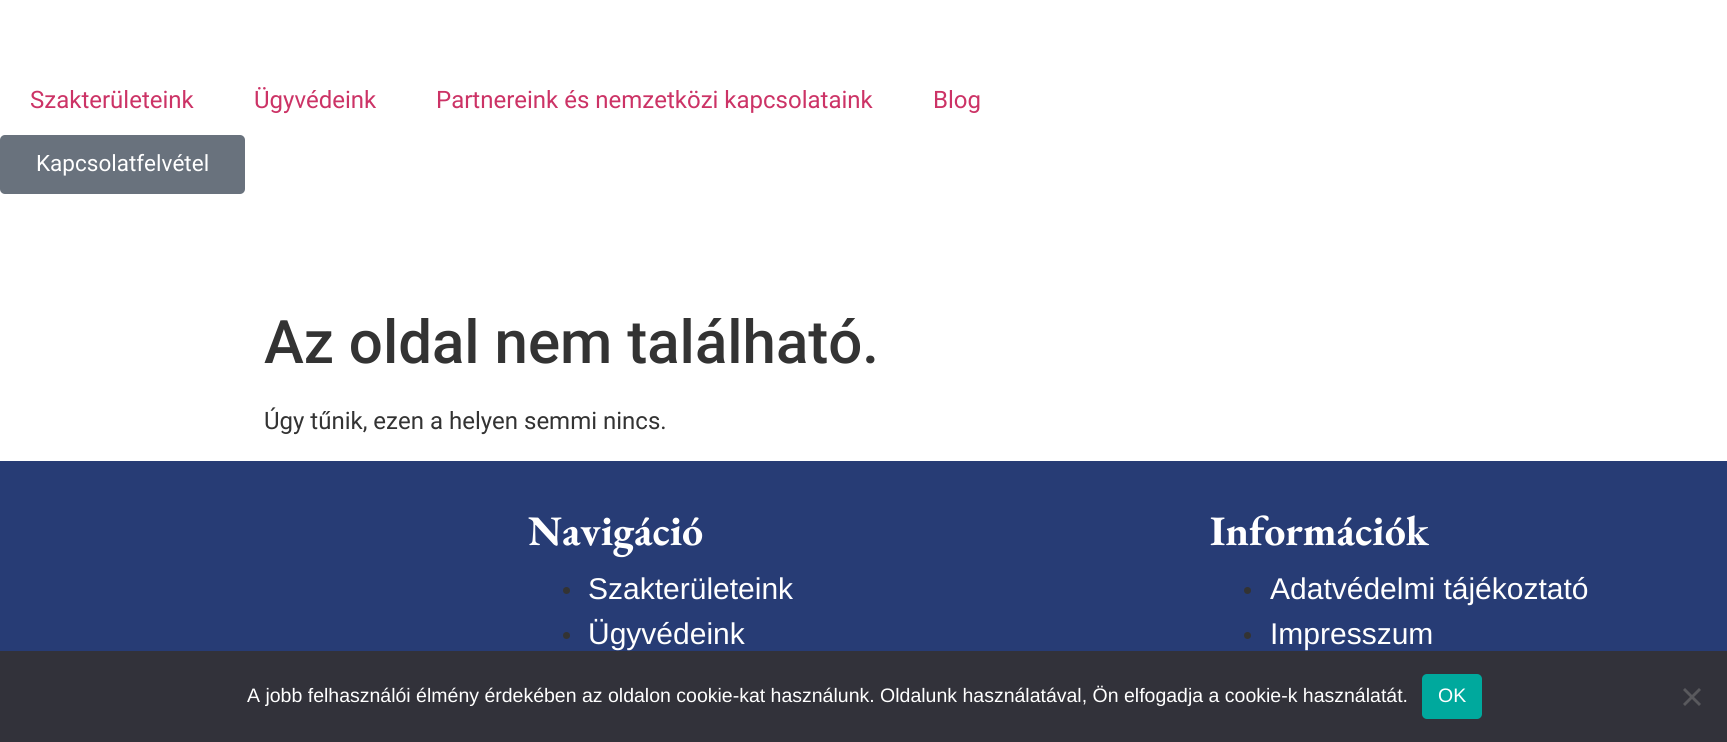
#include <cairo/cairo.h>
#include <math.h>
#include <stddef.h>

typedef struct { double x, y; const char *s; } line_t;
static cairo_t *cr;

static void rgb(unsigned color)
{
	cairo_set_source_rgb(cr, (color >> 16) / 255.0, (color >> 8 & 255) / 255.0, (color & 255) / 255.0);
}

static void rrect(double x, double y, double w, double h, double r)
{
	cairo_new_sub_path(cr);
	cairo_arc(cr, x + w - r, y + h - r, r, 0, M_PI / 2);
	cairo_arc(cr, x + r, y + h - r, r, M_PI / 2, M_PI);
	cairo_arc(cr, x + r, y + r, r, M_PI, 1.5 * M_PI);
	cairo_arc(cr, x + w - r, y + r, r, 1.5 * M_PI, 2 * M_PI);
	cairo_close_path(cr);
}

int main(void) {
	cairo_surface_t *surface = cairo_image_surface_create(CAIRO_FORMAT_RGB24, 1727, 742);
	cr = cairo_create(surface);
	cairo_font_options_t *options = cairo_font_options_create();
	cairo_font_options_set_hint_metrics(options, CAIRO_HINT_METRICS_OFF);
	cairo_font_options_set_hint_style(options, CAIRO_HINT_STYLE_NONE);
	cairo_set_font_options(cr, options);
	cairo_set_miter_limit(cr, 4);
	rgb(0xffffff);
	cairo_paint(cr);
	rgb(0x69727d);
	rrect(0, 135, 245, 59, 5);
	cairo_fill(cr);
	rgb(0x273c75);
	cairo_rectangle(cr, 0, 461, 1727, 190);
	cairo_fill(cr);
	rgb(0x333333);
	cairo_arc(cr, 566.5, 590.5, 3.5, 0, 2 * M_PI);
	cairo_fill(cr);
	cairo_arc(cr, 566.5, 635.5, 3.5, 0, 2 * M_PI);
	cairo_fill(cr);
	cairo_arc(cr, 1247.5, 590.5, 3.5, 0, 2 * M_PI);
	cairo_fill(cr);
	cairo_arc(cr, 1247.5, 635.5, 3.5, 0, 2 * M_PI);
	cairo_fill(cr);
	rgb(0x32323a);
	cairo_rectangle(cr, 0, 651, 1727, 91);
	cairo_fill(cr);
	rgb(0x00a99d);
	rrect(1422, 674, 60, 45, 5);
	cairo_fill(cr);
	rgb(0x59595d);
	cairo_new_path(cr);
	cairo_move_to(cr, 1699, 688);
	cairo_line_to(cr, 1701, 690);
	cairo_line_to(cr, 1685, 706);
	cairo_line_to(cr, 1683, 704);
	cairo_close_path(cr);
	cairo_fill(cr);
	cairo_new_path(cr);
	cairo_move_to(cr, 1683, 690);
	cairo_line_to(cr, 1685, 688);
	cairo_line_to(cr, 1701, 704);
	cairo_line_to(cr, 1699, 706);
	cairo_close_path(cr);
	cairo_fill(cr);
	cairo_select_font_face(cr, "Roboto", CAIRO_FONT_SLANT_NORMAL, CAIRO_FONT_WEIGHT_NORMAL);
	cairo_set_font_size(cr, 24);
	rgb(0xcc3366);
	{
		static const line_t items[] = {
			{30, 108, "Szakterületeink"},
			{254, 108, "Ügyvédeink"},
			{436, 108, "Partnereink és nemzetközi kapcsolataink"},
			{933, 108, "Blog"},
		};
		for (size_t i = 0; i < sizeof items / sizeof *items; i++) {
			cairo_move_to(cr, items[i].x, items[i].y);
			cairo_show_text(cr, items[i].s);
		}
	}
	cairo_set_font_size(cr, 22.5);
	rgb(0xffffff);
	cairo_move_to(cr, 36, 171);
	cairo_show_text(cr, "Kapcsolatfelvétel");
	cairo_select_font_face(cr, "Roboto Medium", CAIRO_FONT_SLANT_NORMAL, CAIRO_FONT_WEIGHT_NORMAL);
	cairo_set_font_size(cr, 60);
	rgb(0x333333);
	cairo_move_to(cr, 264, 363);
	cairo_show_text(cr, "Az oldal nem található.");
	cairo_select_font_face(cr, "Roboto", CAIRO_FONT_SLANT_NORMAL, CAIRO_FONT_WEIGHT_NORMAL);
	cairo_set_font_size(cr, 24);
	cairo_move_to(cr, 264, 429);
	cairo_show_text(cr, "Úgy tűnik, ezen a helyen semmi nincs.");
	cairo_select_font_face(cr, "EB Garamond", CAIRO_FONT_SLANT_NORMAL, CAIRO_FONT_WEIGHT_BOLD);
	cairo_set_font_size(cr, 42);
	rgb(0xffffff);
	cairo_move_to(cr, 528, 545);
	cairo_show_text(cr, "Navigáció");
	cairo_select_font_face(cr, "Liberation Sans", CAIRO_FONT_SLANT_NORMAL, CAIRO_FONT_WEIGHT_NORMAL);
	cairo_set_font_size(cr, 30);
	cairo_move_to(cr, 588, 599);
	cairo_show_text(cr, "Szakterületeink");
	cairo_move_to(cr, 588, 644);
	cairo_show_text(cr, "Ügyvédeink");
	cairo_select_font_face(cr, "EB Garamond", CAIRO_FONT_SLANT_NORMAL, CAIRO_FONT_WEIGHT_BOLD);
	cairo_set_font_size(cr, 42);
	cairo_move_to(cr, 1210, 545);
	cairo_show_text(cr, "Információk");
	cairo_select_font_face(cr, "Liberation Sans", CAIRO_FONT_SLANT_NORMAL, CAIRO_FONT_WEIGHT_NORMAL);
	cairo_set_font_size(cr, 30);
	cairo_move_to(cr, 1270, 599);
	cairo_show_text(cr, "Adatvédelmi tájékoztató");
	cairo_move_to(cr, 1270, 644);
	cairo_show_text(cr, "Impresszum");
	cairo_set_font_size(cr, 19.5);
	cairo_move_to(cr, 247, 702);
	cairo_show_text(cr, "A jobb felhasználói élmény érdekében az oldalon cookie-kat használunk. Oldalunk használatával, Ön elfogadja a cookie-k használatát.");
	cairo_move_to(cr, 1438, 702);
	cairo_show_text(cr, "OK");
	cairo_surface_write_to_png(surface, "page.png");
	cairo_font_options_destroy(options);
	cairo_destroy(cr);
	cairo_surface_destroy(surface);
	return 0;
}
